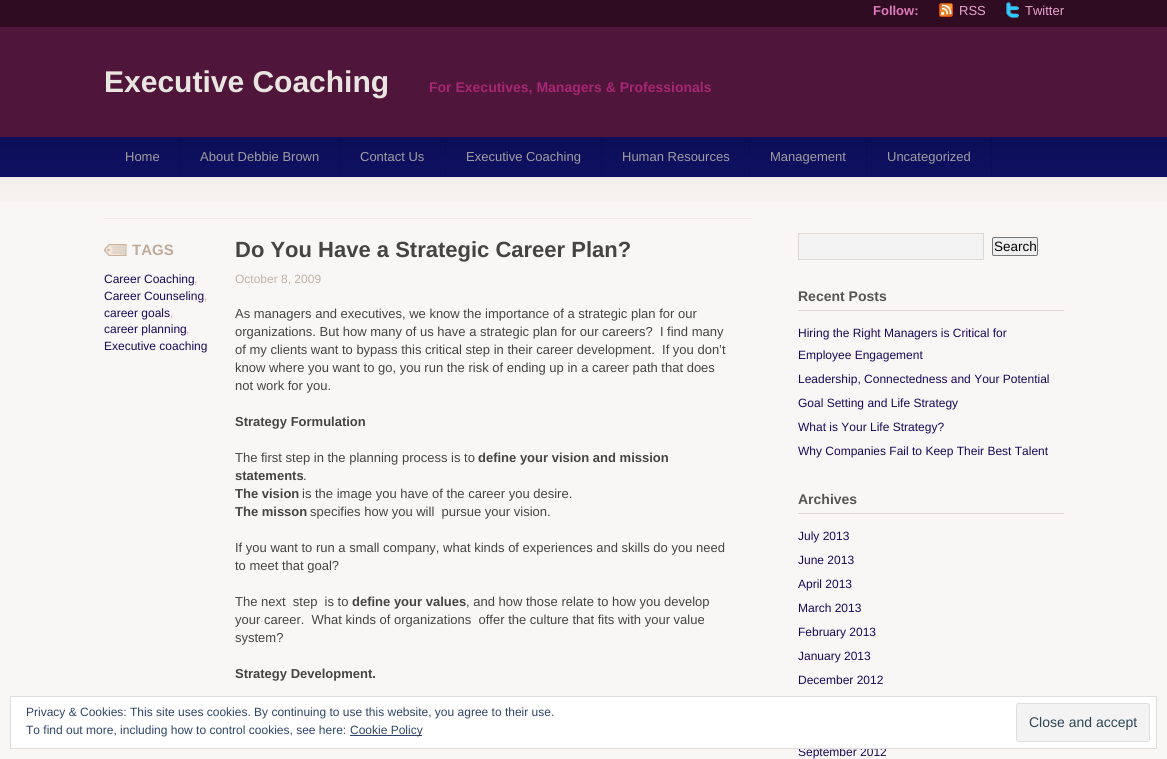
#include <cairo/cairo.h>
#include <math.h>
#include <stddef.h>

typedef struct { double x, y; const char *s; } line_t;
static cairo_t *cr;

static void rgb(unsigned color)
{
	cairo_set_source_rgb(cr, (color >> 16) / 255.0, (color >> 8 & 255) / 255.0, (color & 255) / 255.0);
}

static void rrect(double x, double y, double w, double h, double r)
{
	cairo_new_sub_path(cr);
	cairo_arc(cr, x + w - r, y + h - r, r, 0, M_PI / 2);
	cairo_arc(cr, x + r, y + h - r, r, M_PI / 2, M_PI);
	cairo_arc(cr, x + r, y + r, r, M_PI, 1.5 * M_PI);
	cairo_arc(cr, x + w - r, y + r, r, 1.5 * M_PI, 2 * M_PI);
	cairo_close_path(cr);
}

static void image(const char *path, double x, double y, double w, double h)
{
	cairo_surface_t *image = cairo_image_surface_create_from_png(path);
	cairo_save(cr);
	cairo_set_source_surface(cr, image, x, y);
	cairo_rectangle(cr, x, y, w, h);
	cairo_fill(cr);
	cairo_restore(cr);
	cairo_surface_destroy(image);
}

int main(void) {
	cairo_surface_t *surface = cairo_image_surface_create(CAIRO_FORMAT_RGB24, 1167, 759);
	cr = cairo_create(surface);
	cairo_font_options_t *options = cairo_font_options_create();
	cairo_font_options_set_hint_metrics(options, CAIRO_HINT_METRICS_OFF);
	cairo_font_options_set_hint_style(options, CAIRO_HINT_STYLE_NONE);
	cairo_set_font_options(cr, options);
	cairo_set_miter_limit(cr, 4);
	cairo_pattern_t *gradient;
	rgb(0xf9f7f5);
	cairo_paint(cr);
	rgb(0x50153a);
	cairo_rectangle(cr, 0, 27, 1167, 110);
	cairo_fill(cr);
	rgb(0x300c23);
	cairo_rectangle(cr, 0, 0, 1167, 27);
	cairo_fill(cr);
	image("img/1.png", 939, 3, 14, 14);
	image("img/2.png", 1006, 2, 13, 16);
	gradient = cairo_pattern_create_linear(584, 137, 584, 177);
	cairo_pattern_add_color_stop_rgba(gradient, 0, 0.051, 0.055, 0.345, 1);
	cairo_pattern_add_color_stop_rgba(gradient, 1, 0.055, 0.063, 0.384, 1);
	cairo_set_source(cr, gradient);
	cairo_pattern_destroy(gradient);
	cairo_rectangle(cr, 0, 137, 1167, 40);
	cairo_fill(cr);
	gradient = cairo_pattern_create_linear(584, 137, 584, 177);
	cairo_pattern_add_color_stop_rgba(gradient, 0, 0.047, 0.051, 0.31, 1);
	cairo_pattern_add_color_stop_rgba(gradient, 1, 0.051, 0.055, 0.345, 1);
	cairo_set_source(cr, gradient);
	cairo_pattern_destroy(gradient);
	cairo_rectangle(cr, 991, 137, 1, 40);
	cairo_fill(cr);
	cairo_rectangle(cr, 866, 137, 1, 40);
	cairo_fill(cr);
	cairo_rectangle(cr, 749, 137, 1, 40);
	cairo_fill(cr);
	cairo_rectangle(cr, 601, 137, 1, 40);
	cairo_fill(cr);
	cairo_rectangle(cr, 445, 137, 1, 40);
	cairo_fill(cr);
	cairo_rectangle(cr, 339, 137, 1, 40);
	cairo_fill(cr);
	cairo_rectangle(cr, 179, 137, 1, 40);
	cairo_fill(cr);
	rgb(0xede7e0);
	cairo_rectangle(cr, 0, 177, 1167, 1);
	cairo_fill(cr);
	image("img/3.png", 0, 178, 1167, 24);
	rgb(0xefeae4);
	cairo_rectangle(cr, 104, 218, 648, 1);
	cairo_fill(cr);
	image("img/4.png", 104, 244, 23, 12);
	rgb(0xf3f3f3);
	cairo_rectangle(cr, 798.5, 233.5, 185, 26);
	cairo_fill_preserve(cr);
	rgb(0xded8d5);
	cairo_set_line_width(cr, 1);
	cairo_stroke(cr);
	rgb(0xefefef);
	rrect(992.5, 237.5, 45, 18, 1.5);
	cairo_fill_preserve(cr);
	rgb(0x767676);
	cairo_stroke(cr);
	rgb(0xdfdad5);
	cairo_rectangle(cr, 798, 310, 266, 1);
	cairo_fill(cr);
	cairo_rectangle(cr, 798, 513, 266, 1);
	cairo_fill(cr);
	cairo_select_font_face(cr, "Liberation Sans", CAIRO_FONT_SLANT_NORMAL, CAIRO_FONT_WEIGHT_BOLD);
	cairo_set_font_size(cr, 13);
	rgb(0xdf7ab9);
	cairo_move_to(cr, 873, 15);
	cairo_show_text(cr, "Follow:");
	cairo_select_font_face(cr, "Liberation Sans", CAIRO_FONT_SLANT_NORMAL, CAIRO_FONT_WEIGHT_NORMAL);
	rgb(0xe9a4cd);
	cairo_move_to(cr, 959, 15);
	cairo_show_text(cr, "RSS");
	cairo_move_to(cr, 1025, 15);
	cairo_show_text(cr, "Twitter");
	cairo_select_font_face(cr, "Liberation Sans", CAIRO_FONT_SLANT_NORMAL, CAIRO_FONT_WEIGHT_BOLD);
	cairo_set_font_size(cr, 30);
	rgb(0xe9e5e0);
	cairo_move_to(cr, 104, 92);
	cairo_show_text(cr, "Executive Coaching");
	cairo_set_font_size(cr, 14);
	rgb(0xa52674);
	cairo_move_to(cr, 429, 92);
	cairo_show_text(cr, "For Executives, Managers & Professionals");
	cairo_select_font_face(cr, "Liberation Sans", CAIRO_FONT_SLANT_NORMAL, CAIRO_FONT_WEIGHT_NORMAL);
	cairo_set_font_size(cr, 13);
	rgb(0x9e9e9e);
	{
		static const line_t items[] = {
			{125, 161, "Home"},
			{200, 161, "About Debbie Brown"},
			{360, 161, "Contact Us"},
			{466, 161, "Executive Coaching"},
			{622, 161, "Human Resources"},
			{770, 161, "Management"},
			{887, 161, "Uncategorized"},
		};
		for (size_t i = 0; i < sizeof items / sizeof *items; i++) {
			cairo_move_to(cr, items[i].x, items[i].y);
			cairo_show_text(cr, items[i].s);
		}
	}
	cairo_select_font_face(cr, "Liberation Sans", CAIRO_FONT_SLANT_NORMAL, CAIRO_FONT_WEIGHT_BOLD);
	cairo_set_font_size(cr, 15);
	rgb(0xbeaa99);
	cairo_move_to(cr, 132, 255);
	cairo_show_text(cr, "TAGS");
	cairo_select_font_face(cr, "Liberation Sans", CAIRO_FONT_SLANT_NORMAL, CAIRO_FONT_WEIGHT_NORMAL);
	cairo_set_font_size(cr, 12);
	rgb(0x170858);
	cairo_move_to(cr, 104, 283);
	cairo_show_text(cr, "Career Coaching");
	rgb(0xbeaa99);
	cairo_move_to(cr, 194, 283);
	cairo_show_text(cr, ",");
	rgb(0x170858);
	cairo_move_to(cr, 104, 300);
	cairo_show_text(cr, "Career Counseling");
	rgb(0xbeaa99);
	cairo_move_to(cr, 204, 300);
	cairo_show_text(cr, ",");
	rgb(0x170858);
	cairo_move_to(cr, 104, 317);
	cairo_show_text(cr, "career goals");
	rgb(0xbeaa99);
	cairo_move_to(cr, 170, 317);
	cairo_show_text(cr, ",");
	rgb(0x170858);
	cairo_move_to(cr, 104, 333);
	cairo_show_text(cr, "career planning");
	rgb(0xbeaa99);
	cairo_move_to(cr, 186, 333);
	cairo_show_text(cr, ",");
	rgb(0x170858);
	cairo_move_to(cr, 104, 350);
	cairo_show_text(cr, "Executive coaching");
	cairo_select_font_face(cr, "Liberation Sans", CAIRO_FONT_SLANT_NORMAL, CAIRO_FONT_WEIGHT_BOLD);
	cairo_set_font_size(cr, 22);
	rgb(0x444444);
	cairo_move_to(cr, 235, 257);
	cairo_show_text(cr, "Do You Have a Strategic Career Plan?");
	cairo_select_font_face(cr, "Liberation Sans", CAIRO_FONT_SLANT_NORMAL, CAIRO_FONT_WEIGHT_NORMAL);
	cairo_set_font_size(cr, 12);
	rgb(0xc0b2a5);
	cairo_move_to(cr, 235, 283);
	cairo_show_text(cr, "October 8, 2009");
	cairo_set_font_size(cr, 13);
	rgb(0x444444);
	{
		static const line_t items[] = {
			{235, 318, "As managers and executives, we know the importance of a strategic plan for our"},
			{235, 336, "organizations. But how many of us have a strategic plan for our careers?  I find many"},
			{235, 354, "of my clients want to bypass this critical step in their career development.  If you don’t"},
			{235, 372, "know where you want to go, you run the risk of ending up in a career path that does"},
			{235, 390, "not work for you."},
		};
		for (size_t i = 0; i < sizeof items / sizeof *items; i++) {
			cairo_move_to(cr, items[i].x, items[i].y);
			cairo_show_text(cr, items[i].s);
		}
	}
	cairo_select_font_face(cr, "Liberation Sans", CAIRO_FONT_SLANT_NORMAL, CAIRO_FONT_WEIGHT_BOLD);
	cairo_move_to(cr, 235, 426);
	cairo_show_text(cr, "Strategy Formulation");
	cairo_select_font_face(cr, "Liberation Sans", CAIRO_FONT_SLANT_NORMAL, CAIRO_FONT_WEIGHT_NORMAL);
	cairo_move_to(cr, 235, 462);
	cairo_show_text(cr, "The first step in the planning process is to");
	cairo_select_font_face(cr, "Liberation Sans", CAIRO_FONT_SLANT_NORMAL, CAIRO_FONT_WEIGHT_BOLD);
	cairo_move_to(cr, 478, 462);
	cairo_show_text(cr, "define your vision and mission");
	cairo_move_to(cr, 235, 480);
	cairo_show_text(cr, "statements");
	cairo_select_font_face(cr, "Liberation Sans", CAIRO_FONT_SLANT_NORMAL, CAIRO_FONT_WEIGHT_NORMAL);
	cairo_move_to(cr, 303, 480);
	cairo_show_text(cr, ".");
	cairo_select_font_face(cr, "Liberation Sans", CAIRO_FONT_SLANT_NORMAL, CAIRO_FONT_WEIGHT_BOLD);
	cairo_move_to(cr, 235, 498);
	cairo_show_text(cr, "The vision");
	cairo_select_font_face(cr, "Liberation Sans", CAIRO_FONT_SLANT_NORMAL, CAIRO_FONT_WEIGHT_NORMAL);
	cairo_move_to(cr, 302, 498);
	cairo_show_text(cr, "is the image you have of the career you desire.");
	cairo_select_font_face(cr, "Liberation Sans", CAIRO_FONT_SLANT_NORMAL, CAIRO_FONT_WEIGHT_BOLD);
	cairo_move_to(cr, 235, 516);
	cairo_show_text(cr, "The misson");
	cairo_select_font_face(cr, "Liberation Sans", CAIRO_FONT_SLANT_NORMAL, CAIRO_FONT_WEIGHT_NORMAL);
	{
		static const line_t items[] = {
			{310, 516, "specifies how you will  pursue your vision."},
			{235, 552, "If you want to run a small company, what kinds of experiences and skills do you need"},
			{235, 570, "to meet that goal?"},
			{235, 606, "The next  step  is to"},
		};
		for (size_t i = 0; i < sizeof items / sizeof *items; i++) {
			cairo_move_to(cr, items[i].x, items[i].y);
			cairo_show_text(cr, items[i].s);
		}
	}
	cairo_select_font_face(cr, "Liberation Sans", CAIRO_FONT_SLANT_NORMAL, CAIRO_FONT_WEIGHT_BOLD);
	cairo_move_to(cr, 352, 606);
	cairo_show_text(cr, "define your values");
	cairo_select_font_face(cr, "Liberation Sans", CAIRO_FONT_SLANT_NORMAL, CAIRO_FONT_WEIGHT_NORMAL);
	{
		static const line_t items[] = {
			{466, 606, ", and how those relate to how you develop"},
			{235, 624, "your career.  What kinds of organizations  offer the culture that fits with your value"},
			{235, 642, "system?"},
		};
		for (size_t i = 0; i < sizeof items / sizeof *items; i++) {
			cairo_move_to(cr, items[i].x, items[i].y);
			cairo_show_text(cr, items[i].s);
		}
	}
	cairo_select_font_face(cr, "Liberation Sans", CAIRO_FONT_SLANT_NORMAL, CAIRO_FONT_WEIGHT_BOLD);
	cairo_move_to(cr, 235, 678);
	cairo_show_text(cr, "Strategy Development.");
	cairo_select_font_face(cr, "Liberation Sans", CAIRO_FONT_SLANT_NORMAL, CAIRO_FONT_WEIGHT_NORMAL);
	cairo_set_font_size(cr, 13.5);
	rgb(0x000000);
	cairo_move_to(cr, 994, 251);
	cairo_show_text(cr, "Search");
	cairo_select_font_face(cr, "Liberation Sans", CAIRO_FONT_SLANT_NORMAL, CAIRO_FONT_WEIGHT_BOLD);
	cairo_set_font_size(cr, 14);
	rgb(0x555555);
	cairo_move_to(cr, 798, 301);
	cairo_show_text(cr, "Recent Posts");
	cairo_select_font_face(cr, "Liberation Sans", CAIRO_FONT_SLANT_NORMAL, CAIRO_FONT_WEIGHT_NORMAL);
	cairo_set_font_size(cr, 12);
	rgb(0x170858);
	{
		static const line_t items[] = {
			{798, 337, "Hiring the Right Managers is Critical for"},
			{798, 359, "Employee Engagement"},
			{798, 383, "Leadership, Connectedness and Your Potential"},
			{798, 407, "Goal Setting and Life Strategy"},
			{798, 431, "What is Your Life Strategy?"},
			{798, 455, "Why Companies Fail to Keep Their Best Talent"},
		};
		for (size_t i = 0; i < sizeof items / sizeof *items; i++) {
			cairo_move_to(cr, items[i].x, items[i].y);
			cairo_show_text(cr, items[i].s);
		}
	}
	cairo_select_font_face(cr, "Liberation Sans", CAIRO_FONT_SLANT_NORMAL, CAIRO_FONT_WEIGHT_BOLD);
	cairo_set_font_size(cr, 14);
	rgb(0x555555);
	cairo_move_to(cr, 798, 504);
	cairo_show_text(cr, "Archives");
	cairo_select_font_face(cr, "Liberation Sans", CAIRO_FONT_SLANT_NORMAL, CAIRO_FONT_WEIGHT_NORMAL);
	cairo_set_font_size(cr, 12);
	rgb(0x170858);
	{
		static const line_t items[] = {
			{798, 540, "July 2013"},
			{798, 564, "June 2013"},
			{798, 588, "April 2013"},
			{798, 612, "March 2013"},
			{798, 636, "February 2013"},
			{798, 660, "January 2013"},
			{798, 684, "December 2012"},
			{798, 756, "September 2012"},
		};
		for (size_t i = 0; i < sizeof items / sizeof *items; i++) {
			cairo_move_to(cr, items[i].x, items[i].y);
			cairo_show_text(cr, items[i].s);
		}
	}
	rgb(0xffffff);
	cairo_rectangle(cr, 10.5, 696.5, 1146, 52);
	cairo_fill_preserve(cr);
	rgb(0xdedede);
	cairo_stroke(cr);
	rgb(0x2e4467);
	cairo_move_to(cr, 26, 716);
	cairo_show_text(cr, "Privacy & Cookies: This site uses cookies. By continuing to use this website, you agree to their use.");
	cairo_move_to(cr, 26, 734);
	cairo_show_text(cr, "To find out more, including how to control cookies, see here:");
	cairo_rectangle(cr, 350, 735, 72, 1);
	cairo_fill(cr);
	cairo_move_to(cr, 350, 734);
	cairo_show_text(cr, "Cookie Policy");
	rgb(0xf3f3f3);
	rrect(1016.5, 703.5, 133, 38, 2.5);
	cairo_fill_preserve(cr);
	rgb(0xdedede);
	cairo_stroke(cr);
	cairo_set_font_size(cr, 14);
	rgb(0x2e4453);
	cairo_move_to(cr, 1029, 727);
	cairo_show_text(cr, "Close and accept");
	cairo_surface_write_to_png(surface, "page.png");
	cairo_font_options_destroy(options);
	cairo_destroy(cr);
	cairo_surface_destroy(surface);
	return 0;
}
